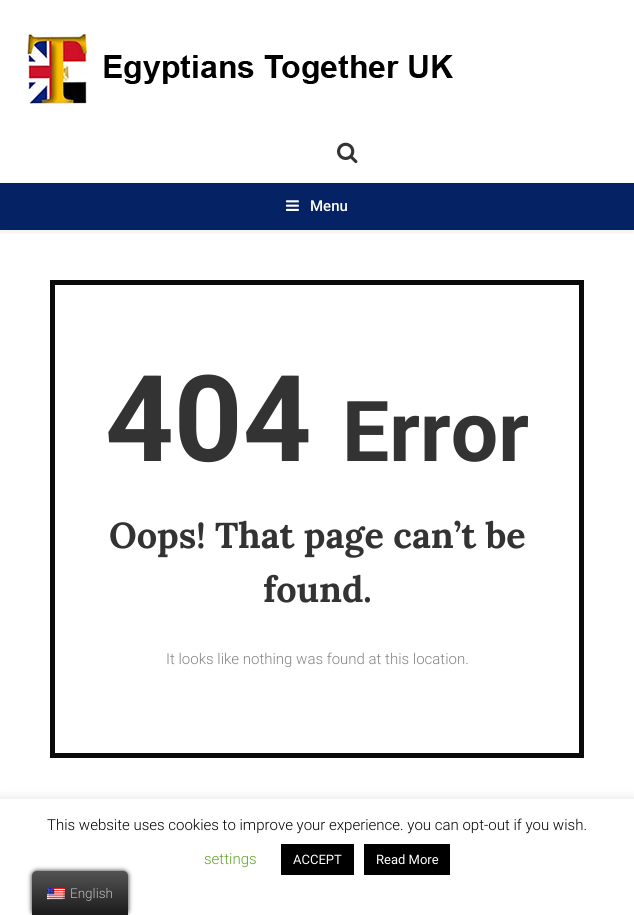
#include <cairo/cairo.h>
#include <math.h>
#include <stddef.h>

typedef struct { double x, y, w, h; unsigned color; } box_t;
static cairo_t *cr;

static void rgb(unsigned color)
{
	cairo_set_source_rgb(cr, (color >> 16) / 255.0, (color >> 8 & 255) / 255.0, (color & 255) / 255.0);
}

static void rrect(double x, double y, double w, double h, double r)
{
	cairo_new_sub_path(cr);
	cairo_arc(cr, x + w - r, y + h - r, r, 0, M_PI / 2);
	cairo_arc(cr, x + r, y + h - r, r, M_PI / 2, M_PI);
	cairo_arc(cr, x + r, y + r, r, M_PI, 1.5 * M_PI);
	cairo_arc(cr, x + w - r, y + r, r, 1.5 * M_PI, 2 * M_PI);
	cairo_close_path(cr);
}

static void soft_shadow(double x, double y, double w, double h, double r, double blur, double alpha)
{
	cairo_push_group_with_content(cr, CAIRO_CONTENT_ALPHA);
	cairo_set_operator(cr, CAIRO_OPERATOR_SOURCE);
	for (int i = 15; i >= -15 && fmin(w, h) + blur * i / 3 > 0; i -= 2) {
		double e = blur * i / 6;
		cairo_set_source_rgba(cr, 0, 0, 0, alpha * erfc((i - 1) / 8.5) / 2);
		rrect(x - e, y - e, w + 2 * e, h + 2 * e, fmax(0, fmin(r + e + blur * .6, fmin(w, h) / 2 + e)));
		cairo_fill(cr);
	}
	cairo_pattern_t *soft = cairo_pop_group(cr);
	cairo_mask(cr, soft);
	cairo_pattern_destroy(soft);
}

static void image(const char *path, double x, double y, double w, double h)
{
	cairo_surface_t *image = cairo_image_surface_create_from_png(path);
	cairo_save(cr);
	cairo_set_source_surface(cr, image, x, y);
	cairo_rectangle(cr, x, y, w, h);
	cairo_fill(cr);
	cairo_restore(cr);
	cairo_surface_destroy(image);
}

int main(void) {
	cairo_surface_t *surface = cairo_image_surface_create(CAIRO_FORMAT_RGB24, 634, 915);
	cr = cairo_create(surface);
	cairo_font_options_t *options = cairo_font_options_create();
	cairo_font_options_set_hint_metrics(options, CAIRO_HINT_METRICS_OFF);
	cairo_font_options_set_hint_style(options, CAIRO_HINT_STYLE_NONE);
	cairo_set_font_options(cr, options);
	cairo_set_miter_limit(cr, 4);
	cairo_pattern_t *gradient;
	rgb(0xffffff);
	cairo_paint(cr);
	cairo_save(cr);
	cairo_rectangle(cr, 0, 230, 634, 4);
	cairo_clip(cr);
	rgb(0x000000);
	soft_shadow(0, -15, 634, 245, 0, 5, 0.1);
	cairo_restore(cr);
	image("img/1.png", 27, 34, 426, 70);
	image("img/2.png", 337, 142, 21, 22);
	rgb(0x052264);
	cairo_rectangle(cr, 0, 183, 634, 47);
	cairo_fill(cr);
	image("img/3.png", 286, 200, 13, 11);
	cairo_rectangle(cr, 52.5, 282.5, 529, 473);
	rgb(0x0a0a0a);
	cairo_set_line_width(cr, 5);
	cairo_stroke(cr);
	rgb(0xacabab);
	soft_shadow(0, 798, 634, 116, 0, 5, 0.3);
	{
		static const box_t items[] = {
			{0, 799, 634, 116, 0xffffff},
			{281, 844, 73, 31, 0x000000},
			{364, 844, 86, 31, 0x000000},
		};
		for (size_t i = 0; i < sizeof items / sizeof *items; i++) {
			rgb(items[i].color);
			cairo_rectangle(cr, items[i].x, items[i].y, items[i].w, items[i].h);
			cairo_fill(cr);
		}
	}
	rgb(0x212121);
	soft_shadow(32, 871, 96, 44, 5, 2.5, 1);
	gradient = cairo_pattern_create_linear(80, 915, 80, 871);
	cairo_pattern_add_color_stop_rgba(gradient, 0, 0.106, 0.106, 0.106, 1);
	cairo_pattern_add_color_stop_rgba(gradient, 1, 0.329, 0.329, 0.329, 1);
	cairo_set_source(cr, gradient);
	cairo_pattern_destroy(gradient);
	cairo_new_path(cr);
	cairo_move_to(cr, 37, 871);
	cairo_line_to(cr, 123, 871);
	cairo_curve_to(cr, 126, 871, 128, 873, 128, 876);
	cairo_line_to(cr, 128, 915);
	cairo_line_to(cr, 32, 915);
	cairo_line_to(cr, 32, 876);
	cairo_curve_to(cr, 32, 873, 34, 871, 37, 871);
	cairo_close_path(cr);
	cairo_fill(cr);
	image("img/4.png", 47, 888, 18, 12);
	cairo_select_font_face(cr, "Roboto Medium", CAIRO_FONT_SLANT_NORMAL, CAIRO_FONT_WEIGHT_NORMAL);
	cairo_set_font_size(cr, 15);
	rgb(0xffffff);
	cairo_move_to(cr, 310, 211);
	cairo_show_text(cr, "Menu");
	cairo_select_font_face(cr, "Roboto", CAIRO_FONT_SLANT_NORMAL, CAIRO_FONT_WEIGHT_BOLD);
	cairo_set_font_size(cr, 120);
	rgb(0x333333);
	cairo_move_to(cr, 105, 461);
	cairo_show_text(cr, "404");
	cairo_set_font_size(cr, 84);
	cairo_move_to(cr, 342, 461);
	cairo_show_text(cr, "Error");
	cairo_select_font_face(cr, "Lora", CAIRO_FONT_SLANT_NORMAL, CAIRO_FONT_WEIGHT_BOLD);
	cairo_set_font_size(cr, 36);
	cairo_move_to(cr, 109, 548);
	cairo_show_text(cr, "Oops! That page can’t be");
	cairo_move_to(cr, 263, 602);
	cairo_show_text(cr, "found.");
	cairo_select_font_face(cr, "Roboto Light", CAIRO_FONT_SLANT_NORMAL, CAIRO_FONT_WEIGHT_NORMAL);
	cairo_set_font_size(cr, 15);
	rgb(0x838383);
	cairo_move_to(cr, 166, 664);
	cairo_show_text(cr, "It looks like nothing was found at this location.");
	rgb(0x000000);
	cairo_move_to(cr, 47, 830);
	cairo_show_text(cr, "This website uses cookies to improve your experience. you can opt-out if you wish.");
	rgb(0x62a329);
	cairo_move_to(cr, 204, 864);
	cairo_show_text(cr, "settings");
	cairo_select_font_face(cr, "Roboto", CAIRO_FONT_SLANT_NORMAL, CAIRO_FONT_WEIGHT_NORMAL);
	cairo_set_font_size(cr, 13);
	rgb(0xffffff);
	cairo_move_to(cr, 293, 864);
	cairo_show_text(cr, "ACCEPT");
	cairo_move_to(cr, 376, 864);
	cairo_show_text(cr, "Read More");
	cairo_select_font_face(cr, "Roboto Light", CAIRO_FONT_SLANT_NORMAL, CAIRO_FONT_WEIGHT_NORMAL);
	cairo_set_font_size(cr, 13.5);
	rgb(0xbdbdbd);
	cairo_move_to(cr, 70, 898);
	cairo_show_text(cr, "English");
	cairo_surface_write_to_png(surface, "page.png");
	cairo_font_options_destroy(options);
	cairo_destroy(cr);
	cairo_surface_destroy(surface);
	return 0;
}
